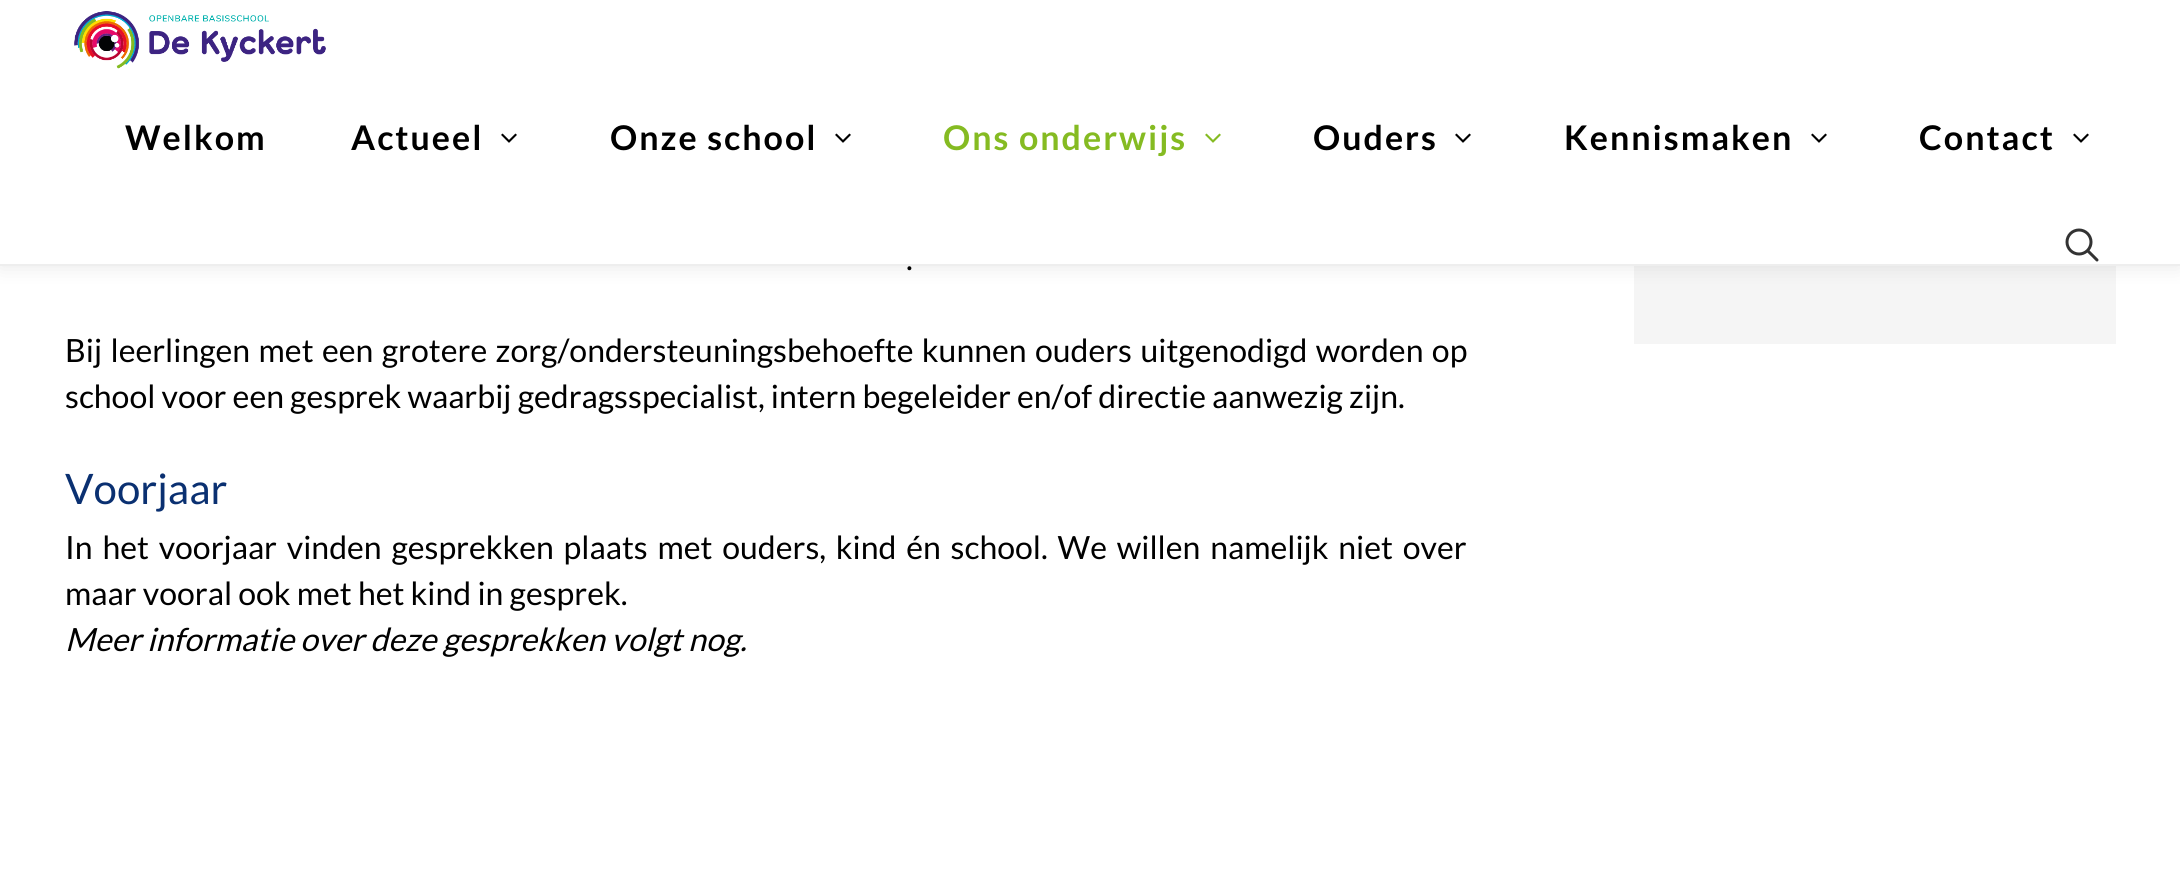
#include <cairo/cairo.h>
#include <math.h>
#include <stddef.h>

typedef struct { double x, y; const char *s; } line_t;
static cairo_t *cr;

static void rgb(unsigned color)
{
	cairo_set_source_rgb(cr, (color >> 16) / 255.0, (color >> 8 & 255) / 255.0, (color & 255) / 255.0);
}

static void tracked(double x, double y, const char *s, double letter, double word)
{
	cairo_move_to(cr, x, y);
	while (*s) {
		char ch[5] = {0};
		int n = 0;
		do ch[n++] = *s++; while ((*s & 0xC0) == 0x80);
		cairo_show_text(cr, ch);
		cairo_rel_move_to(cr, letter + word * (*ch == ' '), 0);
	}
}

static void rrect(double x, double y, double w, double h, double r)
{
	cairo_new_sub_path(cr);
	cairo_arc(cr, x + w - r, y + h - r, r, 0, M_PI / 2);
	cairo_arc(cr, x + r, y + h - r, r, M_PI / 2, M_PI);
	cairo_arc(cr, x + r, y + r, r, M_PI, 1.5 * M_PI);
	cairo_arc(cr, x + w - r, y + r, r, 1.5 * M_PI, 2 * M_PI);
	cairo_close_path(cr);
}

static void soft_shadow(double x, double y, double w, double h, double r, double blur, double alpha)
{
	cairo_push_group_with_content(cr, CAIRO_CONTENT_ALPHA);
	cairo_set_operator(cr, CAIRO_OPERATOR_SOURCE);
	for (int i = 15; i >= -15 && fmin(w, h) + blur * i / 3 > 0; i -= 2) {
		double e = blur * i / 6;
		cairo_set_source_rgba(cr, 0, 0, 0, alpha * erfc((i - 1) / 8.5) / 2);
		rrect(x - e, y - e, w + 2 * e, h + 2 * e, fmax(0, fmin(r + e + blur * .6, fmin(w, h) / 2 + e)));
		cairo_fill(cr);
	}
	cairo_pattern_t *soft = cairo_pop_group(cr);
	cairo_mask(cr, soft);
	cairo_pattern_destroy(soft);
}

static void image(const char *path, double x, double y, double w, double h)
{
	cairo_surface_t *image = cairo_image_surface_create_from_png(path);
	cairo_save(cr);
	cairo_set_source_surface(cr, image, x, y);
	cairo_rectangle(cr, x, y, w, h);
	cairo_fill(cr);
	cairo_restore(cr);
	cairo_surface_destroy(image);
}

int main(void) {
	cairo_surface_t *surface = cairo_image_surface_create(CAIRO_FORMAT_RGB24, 2180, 869);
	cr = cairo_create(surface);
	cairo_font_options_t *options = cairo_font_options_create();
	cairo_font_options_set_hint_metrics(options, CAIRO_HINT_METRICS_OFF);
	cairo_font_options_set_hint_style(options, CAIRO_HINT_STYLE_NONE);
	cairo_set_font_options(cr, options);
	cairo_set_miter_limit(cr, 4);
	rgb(0xffffff);
	cairo_paint(cr);
	rgb(0xf5f5f5);
	cairo_rectangle(cr, 1634, 266, 482, 78);
	cairo_fill(cr);
	rgb(0x000000);
	soft_shadow(0, 0, 2180, 266, 0, 10, 0.1);
	rgb(0xffffff);
	cairo_rectangle(cr, 0, 0, 2180, 264);
	cairo_fill(cr);
	rgb(0xeeeeee);
	cairo_rectangle(cr, 0, 264, 2180, 2);
	cairo_fill(cr);
	image("img/1.png", 74, 11, 252, 58);
	image("img/2.png", 501, 133, 16, 10);
	image("img/2.png", 835, 133, 16, 10);
	image("img/3.png", 1205, 133, 16, 10);
	image("img/2.png", 1455, 133, 16, 10);
	image("img/2.png", 1811, 133, 16, 10);
	image("img/2.png", 2073, 133, 16, 10);
	image("img/4.png", 2065, 228, 34, 34);
	cairo_select_font_face(cr, "Lato", CAIRO_FONT_SLANT_NORMAL, CAIRO_FONT_WEIGHT_BOLD);
	cairo_set_font_size(cr, 34);
	rgb(0x000000);
	{
		static const line_t items[] = {
			{125, 150, "Welkom"},
			{351, 150, "Actueel"},
			{610, 150, "Onze school"},
		};
		for (size_t i = 0; i < sizeof items / sizeof *items; i++) {
			tracked(items[i].x, items[i].y, items[i].s, 2, 0);
		}
	}
	rgb(0x85bb22);
	tracked(943, 150, "Ons onderwijs", 2, 0);
	rgb(0x000000);
	{
		static const line_t items[] = {
			{1313, 150, "Ouders"},
			{1564, 150, "Kennismaken"},
			{1919, 150, "Contact"},
		};
		for (size_t i = 0; i < sizeof items / sizeof *items; i++) {
			tracked(items[i].x, items[i].y, items[i].s, 2, 0);
		}
	}
	cairo_select_font_face(cr, "Lato", CAIRO_FONT_SLANT_NORMAL, CAIRO_FONT_WEIGHT_NORMAL);
	cairo_set_font_size(cr, 32);
	cairo_move_to(cr, 906, 270);
	cairo_show_text(cr, ".");
	tracked(65, 362, "Bij leerlingen met een grotere zorg/ondersteuningsbehoefte kunnen ouders uitgenodigd worden op", 0, 2.25);
	cairo_move_to(cr, 65, 408);
	cairo_show_text(cr, "school voor een gesprek waarbij gedragsspecialist, intern begeleider en/of directie aanwezig zijn.");
	cairo_set_font_size(cr, 42);
	rgb(0x0a3071);
	cairo_move_to(cr, 65, 504);
	cairo_show_text(cr, "Voorjaar");
	cairo_set_font_size(cr, 32);
	rgb(0x000000);
	tracked(65, 559, "In het voorjaar vinden gesprekken plaats met ouders, kind én school. We willen namelijk niet over", 0, 3.6);
	cairo_move_to(cr, 65, 605);
	cairo_show_text(cr, "maar vooral ook met het kind in gesprek.");
	cairo_select_font_face(cr, "Lato", CAIRO_FONT_SLANT_ITALIC, CAIRO_FONT_WEIGHT_NORMAL);
	cairo_move_to(cr, 65, 651);
	cairo_show_text(cr, "Meer informatie over deze gesprekken volgt nog.");
	cairo_surface_write_to_png(surface, "page.png");
	cairo_font_options_destroy(options);
	cairo_destroy(cr);
	cairo_surface_destroy(surface);
	return 0;
}
